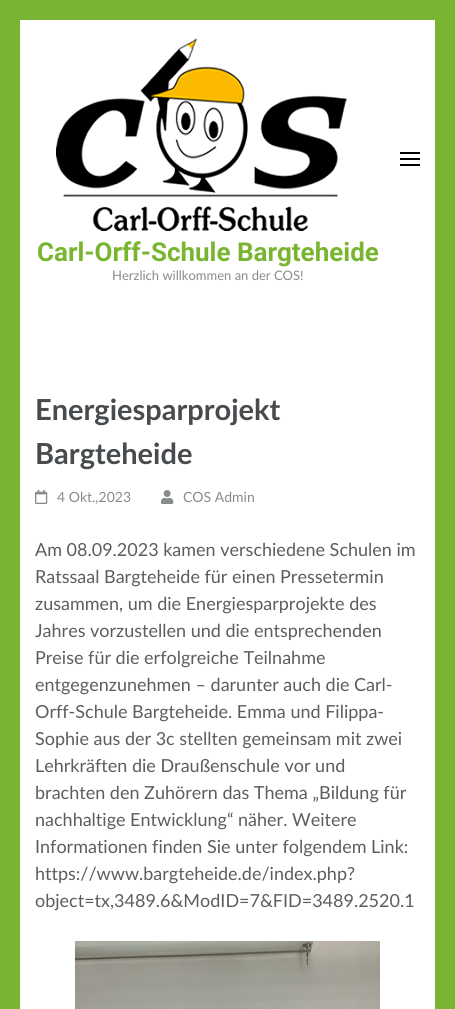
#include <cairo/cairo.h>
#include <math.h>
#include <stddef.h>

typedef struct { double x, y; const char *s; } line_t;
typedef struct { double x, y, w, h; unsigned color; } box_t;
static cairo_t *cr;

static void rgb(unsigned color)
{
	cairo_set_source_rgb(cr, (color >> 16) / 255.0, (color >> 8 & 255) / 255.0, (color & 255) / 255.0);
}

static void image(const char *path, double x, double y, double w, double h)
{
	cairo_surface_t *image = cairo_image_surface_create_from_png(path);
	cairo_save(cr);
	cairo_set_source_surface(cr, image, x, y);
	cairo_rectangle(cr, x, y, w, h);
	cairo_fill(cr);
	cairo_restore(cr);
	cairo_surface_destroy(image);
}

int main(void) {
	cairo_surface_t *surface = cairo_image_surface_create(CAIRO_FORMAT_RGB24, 455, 1009);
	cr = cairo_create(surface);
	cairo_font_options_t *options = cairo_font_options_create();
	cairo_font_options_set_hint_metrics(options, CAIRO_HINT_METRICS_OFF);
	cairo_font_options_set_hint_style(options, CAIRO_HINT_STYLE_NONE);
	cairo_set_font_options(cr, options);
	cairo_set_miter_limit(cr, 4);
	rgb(0x79b530);
	cairo_paint(cr);
	{
		static const box_t items[] = {
			{20, 20, 415, 989, 0xffffff},
			{400, 152, 20, 2, 0x000000},
			{400, 158, 20, 2, 0x000000},
			{400, 164, 20, 2, 0x000000},
		};
		for (size_t i = 0; i < sizeof items / sizeof *items; i++) {
			rgb(items[i].color);
			cairo_rectangle(cr, items[i].x, items[i].y, items[i].w, items[i].h);
			cairo_fill(cr);
		}
	}
	image("img/1.png", 56, 38, 291, 193);
	image("img/2.png", 35, 490, 13, 14);
	image("img/3.png", 161, 490, 13, 14);
	image("img/4.png", 75, 941, 305, 68);
	cairo_select_font_face(cr, "Roboto", CAIRO_FONT_SLANT_NORMAL, CAIRO_FONT_WEIGHT_BOLD);
	cairo_set_font_size(cr, 26);
	rgb(0x79b530);
	cairo_move_to(cr, 37, 261);
	cairo_show_text(cr, "Carl-Orff-Schule Bargteheide");
	cairo_select_font_face(cr, "Lato", CAIRO_FONT_SLANT_NORMAL, CAIRO_FONT_WEIGHT_NORMAL);
	cairo_set_font_size(cr, 13);
	rgb(0x878b8d);
	cairo_move_to(cr, 112, 280);
	cairo_show_text(cr, "Herzlich willkommen an der COS!");
	cairo_select_font_face(cr, "Lato", CAIRO_FONT_SLANT_NORMAL, CAIRO_FONT_WEIGHT_BOLD);
	cairo_set_font_size(cr, 29);
	rgb(0x474b4e);
	cairo_move_to(cr, 35, 420);
	cairo_show_text(cr, "Energiesparprojekt");
	cairo_move_to(cr, 35, 464);
	cairo_show_text(cr, "Bargteheide");
	cairo_select_font_face(cr, "Lato", CAIRO_FONT_SLANT_NORMAL, CAIRO_FONT_WEIGHT_NORMAL);
	cairo_set_font_size(cr, 14);
	rgb(0x878b8d);
	cairo_move_to(cr, 57, 502);
	cairo_show_text(cr, "4 Okt.,2023");
	cairo_move_to(cr, 183, 502);
	cairo_show_text(cr, "COS Admin");
	cairo_set_font_size(cr, 18);
	rgb(0x5d5d5d);
	{
		static const line_t items[] = {
			{35, 556, "Am 08.09.2023 kamen verschiedene Schulen im"},
			{35, 583, "Ratssaal Bargteheide für einen Pressetermin"},
			{35, 610, "zusammen, um die Energiesparprojekte des"},
			{35, 637, "Jahres vorzustellen und die entsprechenden"},
			{35, 664, "Preise für die erfolgreiche Teilnahme"},
			{35, 691, "entgegenzunehmen – darunter auch die Carl-"},
			{35, 718, "Orff-Schule Bargteheide. Emma und Filippa-"},
			{35, 745, "Sophie aus der 3c stellten gemeinsam mit zwei"},
			{35, 772, "Lehrkräften die Draußenschule vor und"},
			{35, 799, "brachten den Zuhörern das Thema „Bildung für"},
			{35, 826, "nachhaltige Entwicklung“ näher. Weitere"},
			{35, 853, "Informationen finden Sie unter folgendem Link:"},
			{35, 880, "https://www.bargteheide.de/index.php?"},
			{35, 907, "object=tx,3489.6&ModID=7&FID=3489.2520.1"},
		};
		for (size_t i = 0; i < sizeof items / sizeof *items; i++) {
			cairo_move_to(cr, items[i].x, items[i].y);
			cairo_show_text(cr, items[i].s);
		}
	}
	cairo_surface_write_to_png(surface, "page.png");
	cairo_font_options_destroy(options);
	cairo_destroy(cr);
	cairo_surface_destroy(surface);
	return 0;
}
